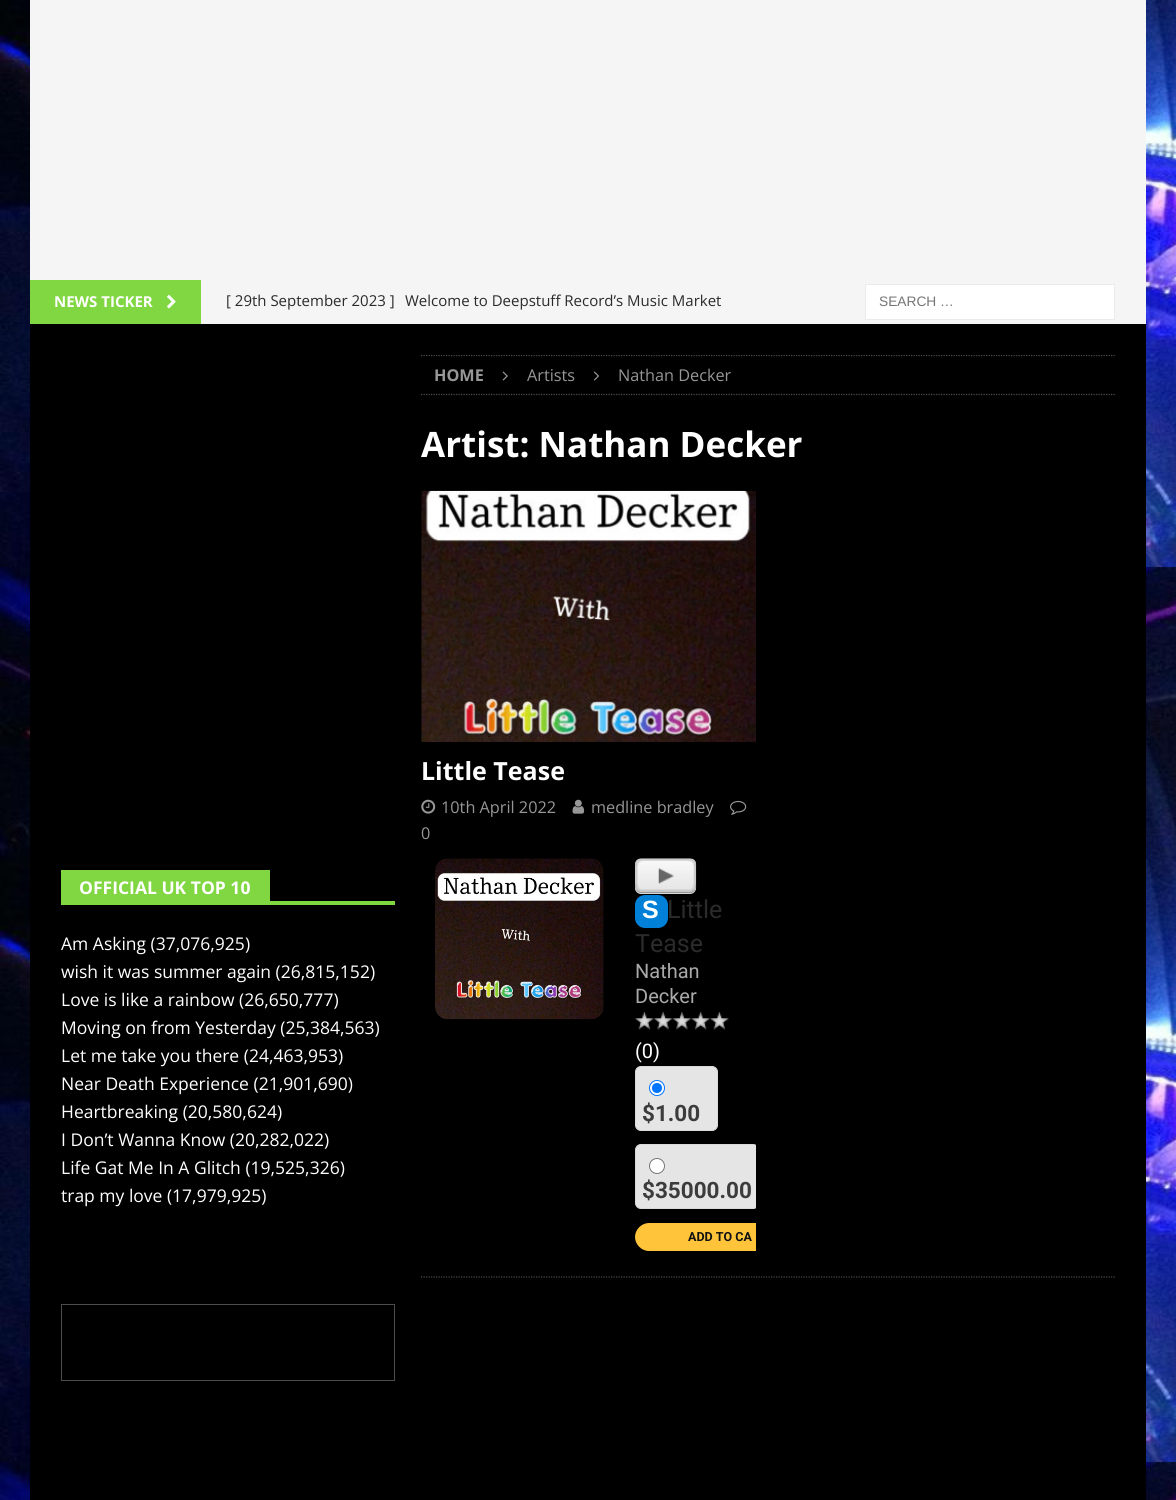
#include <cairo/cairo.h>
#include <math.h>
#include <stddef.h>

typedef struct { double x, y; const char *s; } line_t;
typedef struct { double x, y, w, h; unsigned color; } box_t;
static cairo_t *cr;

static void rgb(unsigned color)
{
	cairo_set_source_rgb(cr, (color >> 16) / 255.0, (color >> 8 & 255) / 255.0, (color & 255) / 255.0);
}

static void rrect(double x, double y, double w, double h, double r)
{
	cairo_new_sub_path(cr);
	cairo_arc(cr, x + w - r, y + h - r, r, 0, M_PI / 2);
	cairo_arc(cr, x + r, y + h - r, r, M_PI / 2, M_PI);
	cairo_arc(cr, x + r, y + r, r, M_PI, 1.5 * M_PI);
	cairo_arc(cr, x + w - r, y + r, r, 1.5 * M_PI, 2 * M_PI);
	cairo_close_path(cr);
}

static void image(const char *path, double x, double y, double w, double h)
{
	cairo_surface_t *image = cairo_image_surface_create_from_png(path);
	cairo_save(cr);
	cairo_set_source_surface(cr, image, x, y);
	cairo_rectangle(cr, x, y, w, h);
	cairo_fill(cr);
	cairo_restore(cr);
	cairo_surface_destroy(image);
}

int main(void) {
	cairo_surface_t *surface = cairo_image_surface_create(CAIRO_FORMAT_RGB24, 1176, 1500);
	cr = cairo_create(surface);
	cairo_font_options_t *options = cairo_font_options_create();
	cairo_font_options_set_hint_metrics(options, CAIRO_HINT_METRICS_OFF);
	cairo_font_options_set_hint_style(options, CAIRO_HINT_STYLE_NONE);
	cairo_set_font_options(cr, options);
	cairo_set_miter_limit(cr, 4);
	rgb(0xffffff);
	cairo_paint(cr);
	image("img/1.png", 0, 0, 1176, 1500);
	rgb(0xf5f5f5);
	cairo_rectangle(cr, 30, 0, 1116, 324);
	cairo_fill(cr);
	rgb(0x81d742);
	cairo_rectangle(cr, 30, 280, 171, 44);
	cairo_fill(cr);
	image("img/2.png", 167, 294, 9, 15);
	rgb(0xffffff);
	cairo_rectangle(cr, 865.5, 284.5, 249, 35);
	cairo_fill_preserve(cr);
	rgb(0xebebeb);
	cairo_set_line_width(cr, 1);
	cairo_stroke(cr);
	{
		static const box_t items[] = {
			{30, 324, 1116, 1176, 0x000000},
			{61, 901, 334, 4, 0x81d742},
			{61, 870, 209, 31, 0x81d742},
		};
		for (size_t i = 0; i < sizeof items / sizeof *items; i++) {
			rgb(items[i].color);
			cairo_rectangle(cr, items[i].x, items[i].y, items[i].w, items[i].h);
			cairo_fill(cr);
		}
	}
	cairo_rectangle(cr, 61.5, 1304.5, 333, 76);
	rgb(0x4d4d4d);
	cairo_stroke(cr);
	cairo_save(cr);
	cairo_rectangle(cr, 421, 355, 694, 923);
	cairo_clip(cr);
	cairo_new_path(cr);
	cairo_move_to(cr, 421, 355.5);
	cairo_line_to(cr, 1115, 355.5);
	cairo_set_line_width(cr, 1.2);
	cairo_set_dash(cr, (double[]){1.25, 1.25}, 2, 0);
	cairo_stroke(cr);
	cairo_restore(cr);
	cairo_new_path(cr);
	cairo_move_to(cr, 421, 394.5);
	cairo_line_to(cr, 1115, 394.5);
	cairo_set_line_width(cr, 1.2);
	cairo_set_dash(cr, (double[]){1.25, 1.25}, 2, 0);
	cairo_stroke(cr);
	image("img/3.png", 502, 371, 6, 10);
	image("img/4.png", 593, 371, 7, 10);
	cairo_new_path(cr);
	cairo_move_to(cr, 421, 1277);
	cairo_line_to(cr, 1115, 1277);
	cairo_stroke(cr);
	image("img/5.png", 421, 490, 335, 252);
	image("img/6.png", 421, 799, 15, 15);
	image("img/7.png", 572, 799, 13, 15);
	image("img/8.png", 730, 800, 17, 15);
	image("img/9.png", 435, 858, 169, 162);
	rgb(0xdddddd);
	rrect(635, 859, 61, 35, 6);
	cairo_fill(cr);
	image("img/10.png", 635, 858, 62, 36);
	rgb(0x0081d7);
	rrect(635, 895, 33, 33, 10);
	cairo_fill(cr);
	image("img/11.png", 635, 1012, 19, 18);
	image("img/12.png", 653, 1012, 20, 18);
	image("img/13.png", 672, 1012, 20, 18);
	image("img/14.png", 691, 1012, 19, 18);
	image("img/15.png", 710, 1012, 19, 18);
	rgb(0xe5e5e5);
	rrect(635.5, 1066.5, 82, 64, 5.5);
	cairo_fill_preserve(cr);
	rgb(0xdadada);
	cairo_set_line_width(cr, 1);
	cairo_set_dash(cr, NULL, 0, 0);
	cairo_stroke(cr);
	rgb(0xffffff);
	cairo_arc(cr, 657, 1088, 7.5, 0, 2 * M_PI);
	cairo_fill_preserve(cr);
	rgb(0x0075ff);
	cairo_stroke(cr);
	cairo_arc(cr, 657, 1088, 5, 0, 2 * M_PI);
	cairo_fill(cr);
	cairo_save(cr);
	cairo_rectangle(cr, 421, 491, 335, 760);
	cairo_clip(cr);
	rgb(0xe5e5e5);
	rrect(635.5, 1144.5, 123, 64, 5.5);
	cairo_fill_preserve(cr);
	rgb(0xdadada);
	cairo_stroke(cr);
	cairo_restore(cr);
	rgb(0xffffff);
	cairo_arc(cr, 657, 1166, 7.5, 0, 2 * M_PI);
	cairo_fill_preserve(cr);
	rgb(0x767676);
	cairo_stroke(cr);
	rgb(0xffc439);
	cairo_new_path(cr);
	cairo_move_to(cr, 649, 1223);
	cairo_line_to(cr, 756, 1223);
	cairo_line_to(cr, 756, 1251);
	cairo_line_to(cr, 649, 1251);
	cairo_curve_to(cr, 641.5, 1251, 635, 1244.5, 635, 1237);
	cairo_curve_to(cr, 635, 1229.5, 641.5, 1223, 649, 1223);
	cairo_close_path(cr);
	cairo_fill(cr);
	cairo_select_font_face(cr, "Open Sans", CAIRO_FONT_SLANT_NORMAL, CAIRO_FONT_WEIGHT_BOLD);
	cairo_set_font_size(cr, 15);
	rgb(0xffffff);
	cairo_move_to(cr, 54, 307);
	cairo_show_text(cr, "NEWS TICKER");
	cairo_select_font_face(cr, "Open Sans", CAIRO_FONT_SLANT_NORMAL, CAIRO_FONT_WEIGHT_NORMAL);
	rgb(0x2b2b2b);
	cairo_move_to(cr, 226, 306);
	cairo_show_text(cr, "[ 29th September 2023 ]");
	cairo_move_to(cr, 405, 306);
	cairo_show_text(cr, "Welcome to Deepstuff Record’s Music Market");
	cairo_select_font_face(cr, "Liberation Sans", CAIRO_FONT_SLANT_NORMAL, CAIRO_FONT_WEIGHT_NORMAL);
	cairo_set_font_size(cr, 13.75);
	rgb(0x757575);
	cairo_move_to(cr, 879, 306);
	cairo_show_text(cr, "SEARCH …");
	cairo_select_font_face(cr, "Open Sans", CAIRO_FONT_SLANT_NORMAL, CAIRO_FONT_WEIGHT_BOLD);
	cairo_set_font_size(cr, 17.5);
	rgb(0xffffff);
	cairo_move_to(cr, 79, 894);
	cairo_show_text(cr, "OFFICIAL UK TOP 10");
	cairo_select_font_face(cr, "Open Sans", CAIRO_FONT_SLANT_NORMAL, CAIRO_FONT_WEIGHT_NORMAL);
	{
		static const line_t items[] = {
			{61, 950, "Am Asking (37,076,925)"},
			{61, 978, "wish it was summer again (26,815,152)"},
			{61, 1006, "Love is like a rainbow (26,650,777)"},
			{61, 1034, "Moving on from Yesterday (25,384,563)"},
			{61, 1062, "Let me take you there (24,463,953)"},
			{61, 1090, "Near Death Experience (21,901,690)"},
			{61, 1118, "Heartbreaking (20,580,624)"},
			{61, 1146, "I Don’t Wanna Know (20,282,022)"},
			{61, 1174, "Life Gat Me In A Glitch (19,525,326)"},
			{61, 1202, "trap my love (17,979,925)"},
		};
		for (size_t i = 0; i < sizeof items / sizeof *items; i++) {
			cairo_move_to(cr, items[i].x, items[i].y);
			cairo_show_text(cr, items[i].s);
		}
	}
	cairo_select_font_face(cr, "Open Sans", CAIRO_FONT_SLANT_NORMAL, CAIRO_FONT_WEIGHT_BOLD);
	cairo_set_font_size(cr, 16.25);
	rgb(0x979797);
	cairo_move_to(cr, 434, 381);
	cairo_show_text(cr, "HOME");
	cairo_select_font_face(cr, "Open Sans", CAIRO_FONT_SLANT_NORMAL, CAIRO_FONT_WEIGHT_NORMAL);
	cairo_move_to(cr, 527, 381);
	cairo_show_text(cr, "Artists");
	cairo_move_to(cr, 618, 381);
	cairo_show_text(cr, "Nathan Decker");
	cairo_select_font_face(cr, "Open Sans", CAIRO_FONT_SLANT_NORMAL, CAIRO_FONT_WEIGHT_BOLD);
	cairo_set_font_size(cr, 35);
	rgb(0xffffff);
	cairo_move_to(cr, 421, 457);
	cairo_show_text(cr, "Artist: Nathan Decker");
	cairo_set_font_size(cr, 25);
	cairo_move_to(cr, 421, 780);
	cairo_show_text(cr, "Little Tease");
	cairo_select_font_face(cr, "Open Sans", CAIRO_FONT_SLANT_NORMAL, CAIRO_FONT_WEIGHT_NORMAL);
	cairo_set_font_size(cr, 16.25);
	rgb(0x979797);
	{
		static const line_t items[] = {
			{441, 813, "10th April 2022"},
			{591, 813, "medline bradley"},
			{421, 839, "0"},
		};
		for (size_t i = 0; i < sizeof items / sizeof *items; i++) {
			cairo_move_to(cr, items[i].x, items[i].y);
			cairo_show_text(cr, items[i].s);
		}
	}
	cairo_select_font_face(cr, "Liberation Sans", CAIRO_FONT_SLANT_NORMAL, CAIRO_FONT_WEIGHT_BOLD);
	cairo_set_font_size(cr, 25);
	rgb(0xffffff);
	cairo_move_to(cr, 642, 918);
	cairo_show_text(cr, "S");
	cairo_select_font_face(cr, "Roboto", CAIRO_FONT_SLANT_NORMAL, CAIRO_FONT_WEIGHT_NORMAL);
	rgb(0x2b2b2b);
	cairo_move_to(cr, 667, 918);
	cairo_show_text(cr, "Little");
	cairo_move_to(cr, 635, 952);
	cairo_show_text(cr, "Tease");
	cairo_set_font_size(cr, 20);
	rgb(0xaaaaaa);
	cairo_move_to(cr, 635, 978);
	cairo_show_text(cr, "Nathan");
	cairo_move_to(cr, 635, 1003);
	cairo_show_text(cr, "Decker");
	rgb(0xffffff);
	cairo_move_to(cr, 635, 1058);
	cairo_show_text(cr, "(0)");
	cairo_select_font_face(cr, "Roboto", CAIRO_FONT_SLANT_NORMAL, CAIRO_FONT_WEIGHT_BOLD);
	cairo_set_font_size(cr, 22.5);
	rgb(0x3c3c3c);
	cairo_move_to(cr, 642, 1121);
	cairo_show_text(cr, "$1.00");
	cairo_move_to(cr, 642, 1198);
	cairo_show_text(cr, "$35000.00");
	cairo_set_font_size(cr, 12.5);
	rgb(0x111111);
	cairo_move_to(cr, 688, 1241);
	cairo_show_text(cr, "ADD TO CA");
	cairo_surface_write_to_png(surface, "page.png");
	cairo_font_options_destroy(options);
	cairo_destroy(cr);
	cairo_surface_destroy(surface);
	return 0;
}
